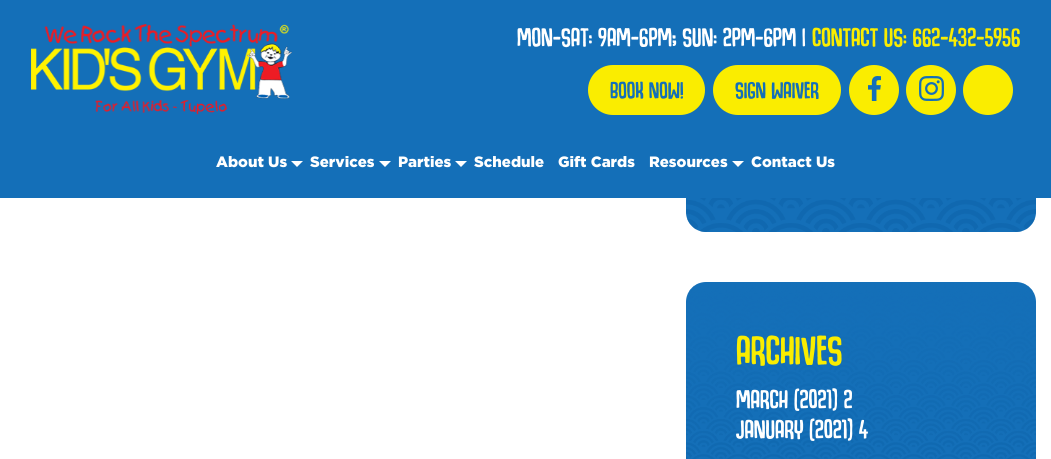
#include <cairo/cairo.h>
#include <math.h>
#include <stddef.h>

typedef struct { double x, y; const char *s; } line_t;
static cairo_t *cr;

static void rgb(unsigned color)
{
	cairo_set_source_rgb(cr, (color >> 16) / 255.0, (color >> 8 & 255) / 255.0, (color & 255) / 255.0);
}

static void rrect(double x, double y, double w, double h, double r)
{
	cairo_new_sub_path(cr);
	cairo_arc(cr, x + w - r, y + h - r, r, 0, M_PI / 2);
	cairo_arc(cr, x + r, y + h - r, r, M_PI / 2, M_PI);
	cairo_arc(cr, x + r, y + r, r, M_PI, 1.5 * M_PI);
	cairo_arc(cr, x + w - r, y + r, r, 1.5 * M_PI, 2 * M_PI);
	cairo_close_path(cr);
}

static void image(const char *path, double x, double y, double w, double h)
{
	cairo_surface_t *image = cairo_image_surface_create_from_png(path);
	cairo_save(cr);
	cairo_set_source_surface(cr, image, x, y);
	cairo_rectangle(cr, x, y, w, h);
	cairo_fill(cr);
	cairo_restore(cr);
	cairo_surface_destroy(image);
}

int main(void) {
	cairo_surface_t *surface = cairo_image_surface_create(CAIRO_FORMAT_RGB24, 1051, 459);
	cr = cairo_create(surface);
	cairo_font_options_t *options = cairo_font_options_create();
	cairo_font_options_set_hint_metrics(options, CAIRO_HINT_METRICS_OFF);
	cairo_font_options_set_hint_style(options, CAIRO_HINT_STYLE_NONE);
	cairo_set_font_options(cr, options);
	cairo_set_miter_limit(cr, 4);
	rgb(0xffffff);
	cairo_paint(cr);
	rgb(0x146fb8);
	rrect(686, -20, 350, 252, 20);
	cairo_fill(cr);
	cairo_rectangle(cr, 0, 0, 1051, 198);
	cairo_fill(cr);
	image("img/1.png", 31, 24, 261, 91);
	rgb(0xfaed00);
	rrect(588, 65, 117, 50, 25);
	cairo_fill(cr);
	rrect(713, 65, 128, 50, 25);
	cairo_fill(cr);
	cairo_arc(cr, 874, 90, 25, 0, 2 * M_PI);
	cairo_fill(cr);
	image("img/2.png", 868, 76, 13, 25);
	cairo_arc(cr, 931, 90, 25, 0, 2 * M_PI);
	cairo_fill(cr);
	image("img/3.png", 919, 76, 25, 25);
	cairo_arc(cr, 988, 90, 25, 0, 2 * M_PI);
	cairo_fill(cr);
	rgb(0xffffff);
	cairo_new_path(cr);
	cairo_move_to(cr, 291, 161);
	cairo_line_to(cr, 303, 161);
	cairo_line_to(cr, 297, 167);
	cairo_close_path(cr);
	cairo_fill(cr);
	cairo_new_path(cr);
	cairo_move_to(cr, 379, 161);
	cairo_line_to(cr, 391, 161);
	cairo_line_to(cr, 385, 167);
	cairo_close_path(cr);
	cairo_fill(cr);
	cairo_new_path(cr);
	cairo_move_to(cr, 455, 161);
	cairo_line_to(cr, 467, 161);
	cairo_line_to(cr, 461, 167);
	cairo_close_path(cr);
	cairo_fill(cr);
	cairo_new_path(cr);
	cairo_move_to(cr, 732, 161);
	cairo_line_to(cr, 744, 161);
	cairo_line_to(cr, 738, 167);
	cairo_close_path(cr);
	cairo_fill(cr);
	image("img/4.png", 686, 198, 350, 34);
	rgb(0x146fb8);
	rrect(686, 282, 350, 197, 20);
	cairo_fill(cr);
	image("img/5.png", 686, 283, 350, 176);
	cairo_select_font_face(cr, "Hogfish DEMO", CAIRO_FONT_SLANT_NORMAL, CAIRO_FONT_WEIGHT_NORMAL);
	cairo_set_font_size(cr, 18);
	rgb(0xffffff);
	cairo_move_to(cr, 517, 46);
	cairo_show_text(cr, "MON-SAT: 9AM-6PM; SUN: 2PM-6PM |");
	rgb(0xfaed00);
	cairo_move_to(cr, 812, 46);
	cairo_show_text(cr, "CONTACT US: 662-432-5956");
	cairo_set_font_size(cr, 16);
	rgb(0x146fb8);
	cairo_move_to(cr, 610, 98);
	cairo_show_text(cr, "BOOK NOW!");
	cairo_move_to(cr, 735, 98);
	cairo_show_text(cr, "SIGN WAIVER");
	cairo_select_font_face(cr, "Gotham Black", CAIRO_FONT_SLANT_NORMAL, CAIRO_FONT_WEIGHT_NORMAL);
	cairo_set_font_size(cr, 15);
	rgb(0xffffff);
	{
		static const line_t items[] = {
			{216, 167, "About Us"},
			{310, 167, "Services"},
			{398, 167, "Parties"},
			{474, 167, "Schedule"},
			{558, 167, "Gift Cards"},
			{649, 167, "Resources"},
			{751, 167, "Contact Us"},
		};
		for (size_t i = 0; i < sizeof items / sizeof *items; i++) {
			cairo_move_to(cr, items[i].x, items[i].y);
			cairo_show_text(cr, items[i].s);
		}
	}
	cairo_select_font_face(cr, "Hogfish DEMO", CAIRO_FONT_SLANT_NORMAL, CAIRO_FONT_WEIGHT_NORMAL);
	cairo_set_font_size(cr, 28);
	rgb(0xfaed00);
	cairo_move_to(cr, 736, 364);
	cairo_show_text(cr, "ARCHIVES");
	cairo_set_font_size(cr, 18);
	rgb(0xffffff);
	cairo_move_to(cr, 736, 408);
	cairo_show_text(cr, "MARCH (2021) 2");
	cairo_move_to(cr, 736, 438);
	cairo_show_text(cr, "JANUARY (2021) 4");
	cairo_surface_write_to_png(surface, "page.png");
	cairo_font_options_destroy(options);
	cairo_destroy(cr);
	cairo_surface_destroy(surface);
	return 0;
}
